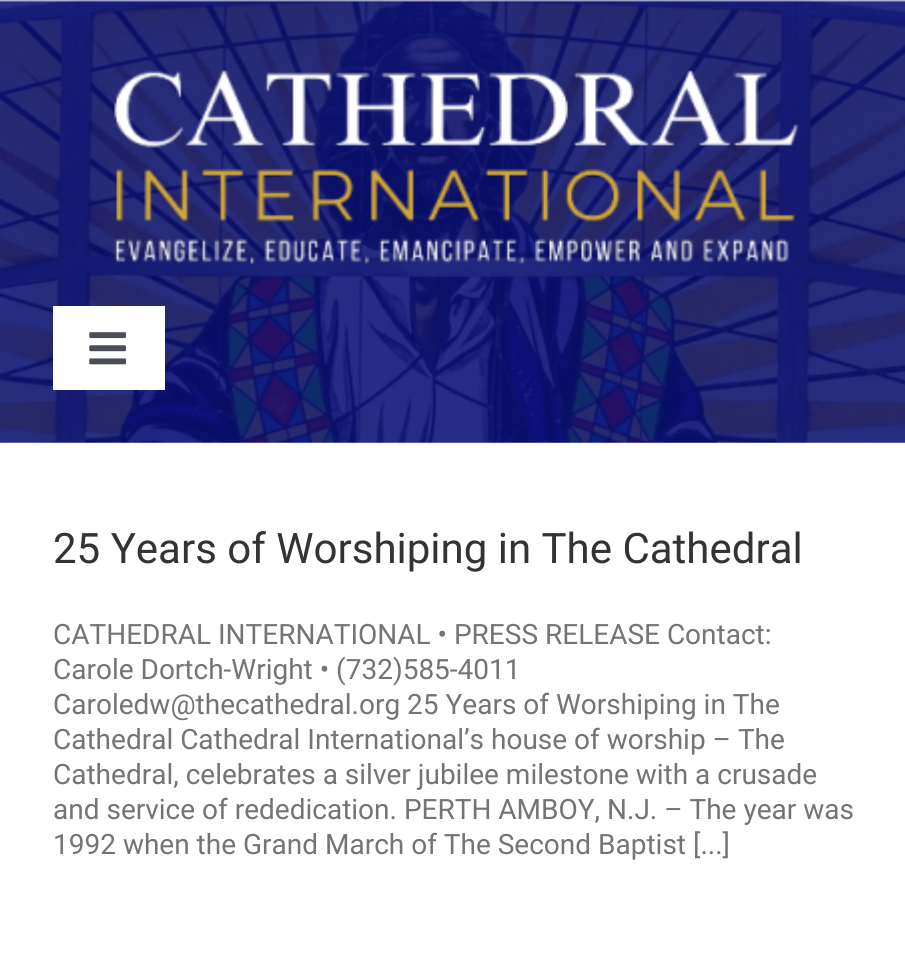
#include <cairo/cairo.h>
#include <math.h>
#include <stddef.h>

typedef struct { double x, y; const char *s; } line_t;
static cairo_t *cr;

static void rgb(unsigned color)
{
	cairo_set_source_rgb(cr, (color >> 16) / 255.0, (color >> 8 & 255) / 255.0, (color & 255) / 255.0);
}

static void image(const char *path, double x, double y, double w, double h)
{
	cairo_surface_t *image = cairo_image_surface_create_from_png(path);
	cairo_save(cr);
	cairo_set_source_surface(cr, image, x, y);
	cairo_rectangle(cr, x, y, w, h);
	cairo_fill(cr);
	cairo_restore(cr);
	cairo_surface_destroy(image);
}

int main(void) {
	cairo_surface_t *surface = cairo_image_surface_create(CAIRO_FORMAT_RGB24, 905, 964);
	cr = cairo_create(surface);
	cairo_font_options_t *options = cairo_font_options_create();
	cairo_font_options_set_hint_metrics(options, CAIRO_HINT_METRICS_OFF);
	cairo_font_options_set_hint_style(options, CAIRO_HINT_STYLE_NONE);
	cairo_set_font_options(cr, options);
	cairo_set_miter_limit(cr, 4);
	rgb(0xffffff);
	cairo_paint(cr);
	image("img/1.png", 0, 0, 905, 443);
	image("img/2.png", 114, 70, 685, 194);
	rgb(0xffffff);
	cairo_rectangle(cr, 53, 306, 112, 84);
	cairo_fill(cr);
	image("img/3.png", 89, 332, 37, 33);
	cairo_select_font_face(cr, "Roboto", CAIRO_FONT_SLANT_NORMAL, CAIRO_FONT_WEIGHT_NORMAL);
	cairo_set_font_size(cr, 42);
	rgb(0x333333);
	cairo_move_to(cr, 53, 563);
	cairo_show_text(cr, "25 Years of Worshiping in The Cathedral");
	cairo_set_font_size(cr, 28);
	rgb(0x747474);
	{
		static const line_t items[] = {
			{53, 644, "CATHEDRAL INTERNATIONAL • PRESS RELEASE Contact:"},
			{53, 679, "Carole Dortch-Wright • (732)585-4011"},
			{53, 714, "Caroledw@thecathedral.org 25 Years of Worshiping in The"},
			{53, 749, "Cathedral Cathedral International’s house of worship – The"},
			{53, 784, "Cathedral, celebrates a silver jubilee milestone with a crusade"},
			{53, 819, "and service of rededication. PERTH AMBOY, N.J. – The year was"},
			{53, 854, "1992 when the Grand March of The Second Baptist [...]"},
		};
		for (size_t i = 0; i < sizeof items / sizeof *items; i++) {
			cairo_move_to(cr, items[i].x, items[i].y);
			cairo_show_text(cr, items[i].s);
		}
	}
	cairo_surface_write_to_png(surface, "page.png");
	cairo_font_options_destroy(options);
	cairo_destroy(cr);
	cairo_surface_destroy(surface);
	return 0;
}
